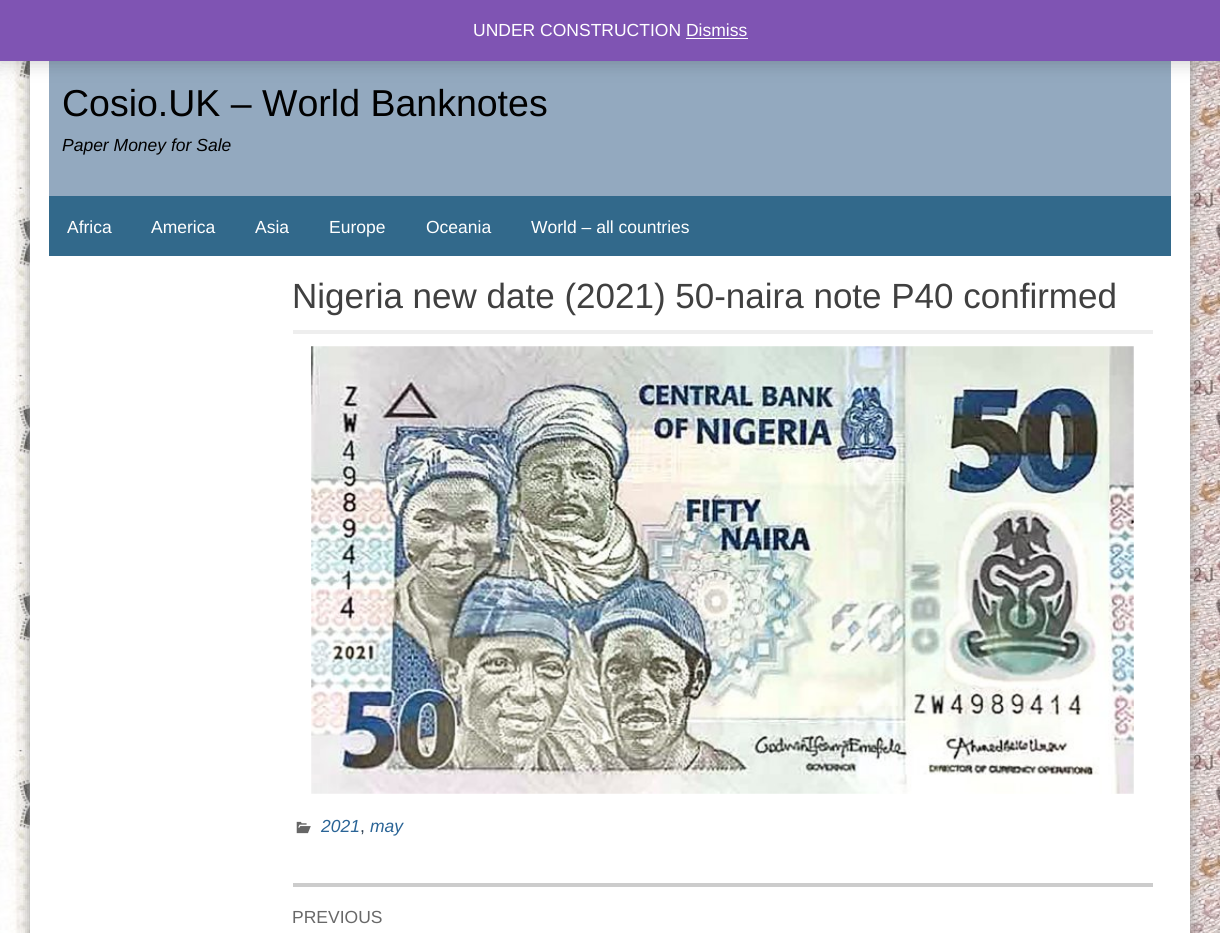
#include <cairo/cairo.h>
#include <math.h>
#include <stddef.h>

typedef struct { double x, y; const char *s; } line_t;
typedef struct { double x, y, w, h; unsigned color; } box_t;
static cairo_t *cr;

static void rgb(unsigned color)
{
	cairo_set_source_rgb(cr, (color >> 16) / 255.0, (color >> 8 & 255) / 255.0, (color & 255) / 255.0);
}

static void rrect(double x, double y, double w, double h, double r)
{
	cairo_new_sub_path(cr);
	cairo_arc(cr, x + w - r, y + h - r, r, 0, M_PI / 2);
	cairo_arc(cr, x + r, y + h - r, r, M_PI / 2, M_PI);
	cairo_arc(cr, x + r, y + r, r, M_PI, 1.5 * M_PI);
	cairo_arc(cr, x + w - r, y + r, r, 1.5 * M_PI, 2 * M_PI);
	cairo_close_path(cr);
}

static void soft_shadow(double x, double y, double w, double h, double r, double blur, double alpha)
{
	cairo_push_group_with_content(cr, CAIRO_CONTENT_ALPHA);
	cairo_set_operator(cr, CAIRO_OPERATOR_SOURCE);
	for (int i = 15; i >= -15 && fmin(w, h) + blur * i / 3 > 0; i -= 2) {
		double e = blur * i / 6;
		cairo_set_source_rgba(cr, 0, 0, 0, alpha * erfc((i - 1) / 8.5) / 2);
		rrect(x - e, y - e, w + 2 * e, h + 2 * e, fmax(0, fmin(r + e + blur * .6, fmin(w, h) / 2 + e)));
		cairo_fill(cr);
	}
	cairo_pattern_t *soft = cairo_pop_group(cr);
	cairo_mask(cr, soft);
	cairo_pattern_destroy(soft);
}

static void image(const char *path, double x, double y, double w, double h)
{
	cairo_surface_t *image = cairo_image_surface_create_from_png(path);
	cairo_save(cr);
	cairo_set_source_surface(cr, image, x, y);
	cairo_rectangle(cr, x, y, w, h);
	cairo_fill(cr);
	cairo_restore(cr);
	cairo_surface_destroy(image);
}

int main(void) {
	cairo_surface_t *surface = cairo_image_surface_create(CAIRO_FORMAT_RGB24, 1220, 933);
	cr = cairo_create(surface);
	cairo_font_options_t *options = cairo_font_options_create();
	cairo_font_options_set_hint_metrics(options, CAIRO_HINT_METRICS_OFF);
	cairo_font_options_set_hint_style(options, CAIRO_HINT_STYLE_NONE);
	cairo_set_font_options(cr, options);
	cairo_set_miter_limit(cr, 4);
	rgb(0xffffff);
	cairo_paint(cr);
	image("img/1.png", 0, 61, 1220, 872);
	rgb(0x999999);
	soft_shadow(30, 25, 1160, 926, 0, 6, 1);
	rgb(0xffffff);
	cairo_rectangle(cr, 30, 61, 1160, 872);
	cairo_fill(cr);
	rgb(0x93a9bf);
	cairo_rectangle(cr, 49, 61, 1122, 135);
	cairo_fill(cr);
	rgb(0x000000);
	soft_shadow(0, 1, 1220, 62, 0, 9, 0.2);
	{
		static const box_t items[] = {
			{0, 0, 1220, 61, 0x7f54b3},
			{686, 38, 62, 1, 0xffffff},
			{49, 196, 1122, 60, 0x32698b},
			{293, 330, 860, 4, 0xeeeeee},
		};
		for (size_t i = 0; i < sizeof items / sizeof *items; i++) {
			rgb(items[i].color);
			cairo_rectangle(cr, items[i].x, items[i].y, items[i].w, items[i].h);
			cairo_fill(cr);
		}
	}
	image("img/2.png", 311, 346, 823, 448);
	image("img/3.png", 296, 821, 15, 13);
	rgb(0xcccccc);
	cairo_rectangle(cr, 293, 883, 860, 4);
	cairo_fill(cr);
	cairo_select_font_face(cr, "Liberation Sans", CAIRO_FONT_SLANT_NORMAL, CAIRO_FONT_WEIGHT_NORMAL);
	cairo_set_font_size(cr, 17.5);
	rgb(0xffffff);
	cairo_move_to(cr, 473, 36);
	cairo_show_text(cr, "UNDER CONSTRUCTION Dismiss");
	cairo_set_font_size(cr, 37.5);
	rgb(0x000000);
	cairo_move_to(cr, 62, 116);
	cairo_show_text(cr, "Cosio.UK – World Banknotes");
	cairo_select_font_face(cr, "Liberation Sans", CAIRO_FONT_SLANT_ITALIC, CAIRO_FONT_WEIGHT_NORMAL);
	cairo_set_font_size(cr, 17.5);
	cairo_move_to(cr, 62, 151);
	cairo_show_text(cr, "Paper Money for Sale");
	cairo_select_font_face(cr, "Liberation Sans", CAIRO_FONT_SLANT_NORMAL, CAIRO_FONT_WEIGHT_NORMAL);
	rgb(0xffffff);
	{
		static const line_t items[] = {
			{67, 233, "Africa"},
			{151, 233, "America"},
			{255, 233, "Asia"},
			{329, 233, "Europe"},
			{426, 233, "Oceania"},
			{531, 233, "World – all countries"},
		};
		for (size_t i = 0; i < sizeof items / sizeof *items; i++) {
			cairo_move_to(cr, items[i].x, items[i].y);
			cairo_show_text(cr, items[i].s);
		}
	}
	cairo_set_font_size(cr, 35);
	rgb(0x404040);
	cairo_move_to(cr, 292, 308);
	cairo_show_text(cr, "Nigeria new date (2021) 50-naira note P40 confirmed");
	cairo_select_font_face(cr, "Liberation Sans", CAIRO_FONT_SLANT_ITALIC, CAIRO_FONT_WEIGHT_NORMAL);
	cairo_set_font_size(cr, 17.5);
	rgb(0x2a6496);
	cairo_move_to(cr, 321, 832);
	cairo_show_text(cr, "2021");
	cairo_select_font_face(cr, "Liberation Sans", CAIRO_FONT_SLANT_NORMAL, CAIRO_FONT_WEIGHT_NORMAL);
	rgb(0x2c3e50);
	cairo_move_to(cr, 360, 832);
	cairo_show_text(cr, ",");
	cairo_select_font_face(cr, "Liberation Sans", CAIRO_FONT_SLANT_ITALIC, CAIRO_FONT_WEIGHT_NORMAL);
	rgb(0x2a6496);
	cairo_move_to(cr, 370, 832);
	cairo_show_text(cr, "may");
	cairo_select_font_face(cr, "Liberation Sans", CAIRO_FONT_SLANT_NORMAL, CAIRO_FONT_WEIGHT_NORMAL);
	rgb(0x686868);
	cairo_move_to(cr, 292, 923);
	cairo_show_text(cr, "PREVIOUS");
	cairo_surface_write_to_png(surface, "page.png");
	cairo_font_options_destroy(options);
	cairo_destroy(cr);
	cairo_surface_destroy(surface);
	return 0;
}
